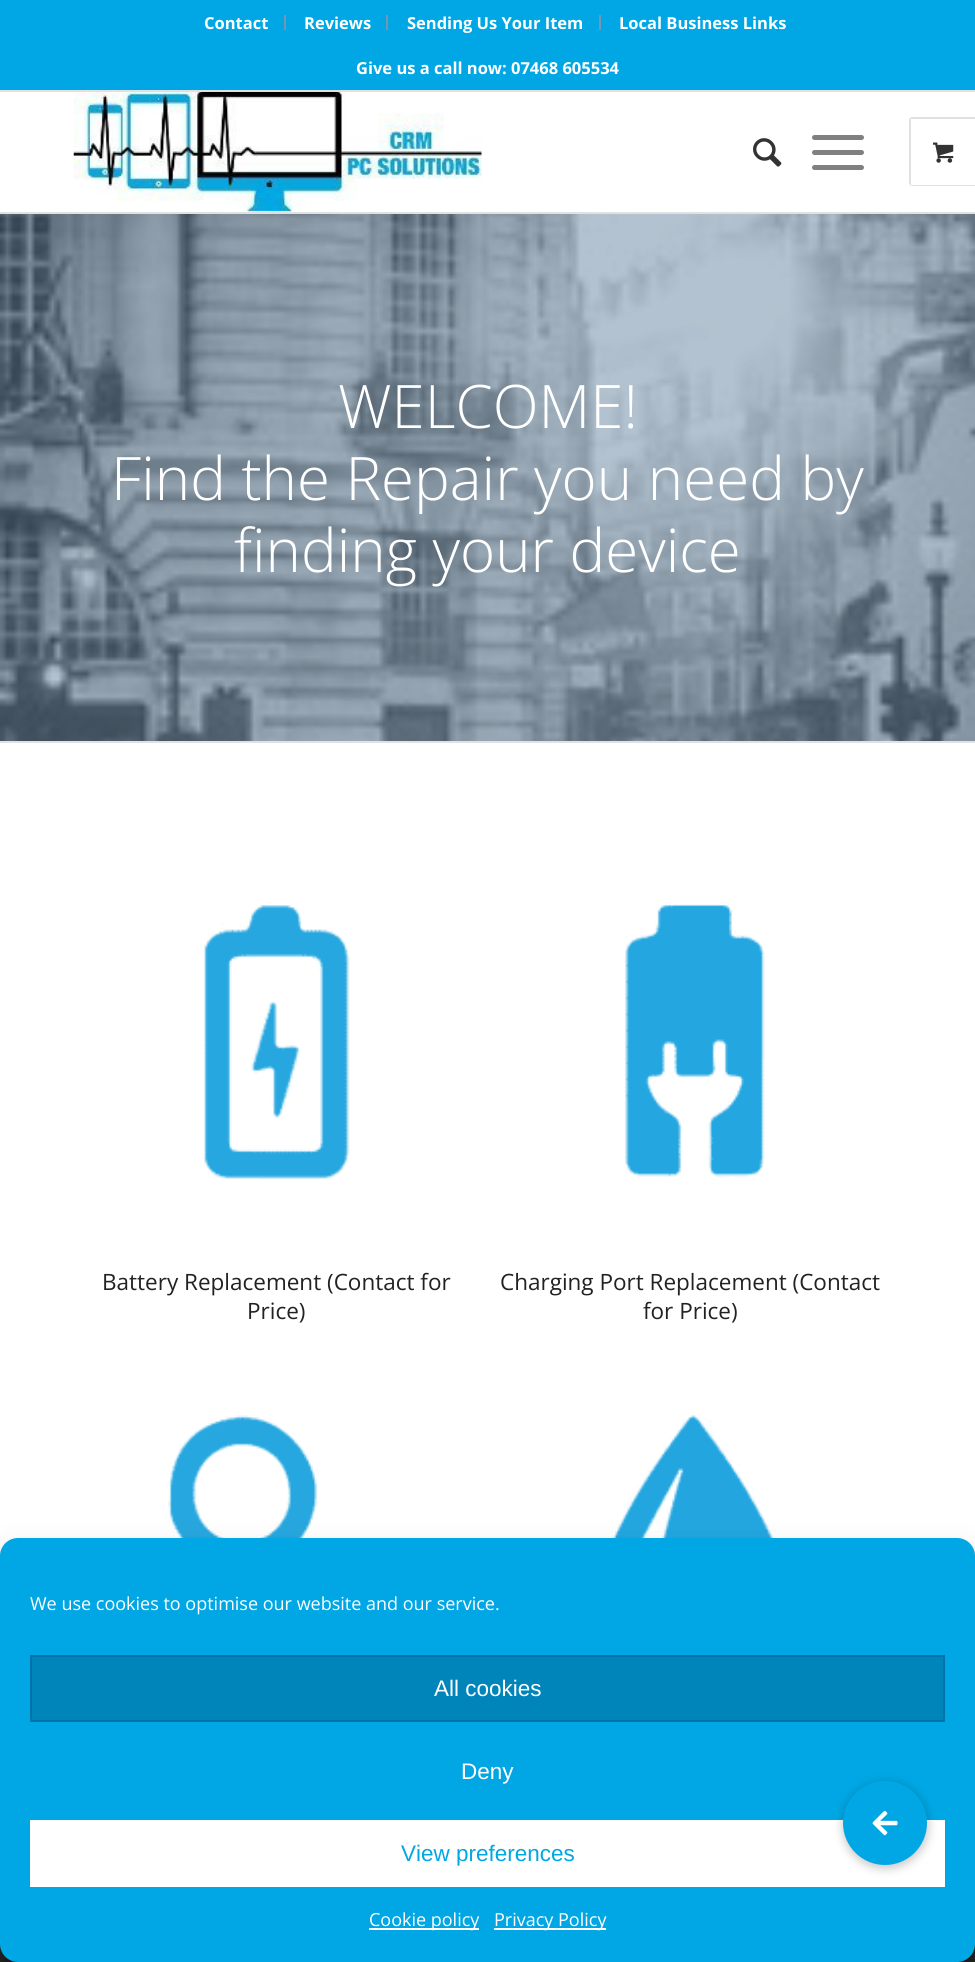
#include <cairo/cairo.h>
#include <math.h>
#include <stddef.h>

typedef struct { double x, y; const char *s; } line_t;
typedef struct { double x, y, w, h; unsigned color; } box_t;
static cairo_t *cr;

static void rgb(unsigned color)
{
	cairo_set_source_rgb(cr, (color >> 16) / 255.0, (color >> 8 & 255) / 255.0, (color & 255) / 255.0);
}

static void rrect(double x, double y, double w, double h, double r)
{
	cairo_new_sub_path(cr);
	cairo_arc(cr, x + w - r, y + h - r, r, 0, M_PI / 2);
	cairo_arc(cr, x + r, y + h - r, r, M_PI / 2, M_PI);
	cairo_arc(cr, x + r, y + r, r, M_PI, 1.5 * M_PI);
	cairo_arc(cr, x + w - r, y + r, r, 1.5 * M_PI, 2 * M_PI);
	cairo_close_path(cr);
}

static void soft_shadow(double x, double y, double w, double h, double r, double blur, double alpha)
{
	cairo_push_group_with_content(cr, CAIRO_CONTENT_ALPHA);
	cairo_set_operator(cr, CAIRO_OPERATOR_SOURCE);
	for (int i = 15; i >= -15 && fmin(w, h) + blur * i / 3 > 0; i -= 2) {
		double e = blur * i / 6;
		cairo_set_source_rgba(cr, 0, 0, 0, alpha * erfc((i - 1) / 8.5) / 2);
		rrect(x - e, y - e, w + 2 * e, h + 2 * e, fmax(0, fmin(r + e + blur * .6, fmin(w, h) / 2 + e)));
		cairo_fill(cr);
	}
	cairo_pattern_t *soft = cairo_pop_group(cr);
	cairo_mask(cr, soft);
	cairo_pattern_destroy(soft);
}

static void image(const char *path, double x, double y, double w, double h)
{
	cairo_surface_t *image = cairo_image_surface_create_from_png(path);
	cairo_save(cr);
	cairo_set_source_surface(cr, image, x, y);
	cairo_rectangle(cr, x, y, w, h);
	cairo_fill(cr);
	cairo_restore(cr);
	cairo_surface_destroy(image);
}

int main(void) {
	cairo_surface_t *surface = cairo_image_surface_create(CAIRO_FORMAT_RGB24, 975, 1962);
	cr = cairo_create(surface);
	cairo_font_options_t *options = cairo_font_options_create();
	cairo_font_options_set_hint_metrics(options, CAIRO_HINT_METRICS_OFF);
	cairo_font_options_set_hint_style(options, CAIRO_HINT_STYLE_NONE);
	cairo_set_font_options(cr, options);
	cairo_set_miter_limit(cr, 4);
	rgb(0xffffff);
	cairo_paint(cr);
	{
		static const box_t items[] = {
			{0, 0, 975, 90, 0x00a7e4},
			{0, 90, 975, 2, 0xe1e1e1},
			{284, 15, 2, 15, 0x7995ad},
			{386, 15, 2, 15, 0x7995ad},
			{599, 15, 2, 15, 0x7995ad},
			{0, 212, 975, 2, 0xe1e1e1},
		};
		for (size_t i = 0; i < sizeof items / sizeof *items; i++) {
			rgb(items[i].color);
			cairo_rectangle(cr, items[i].x, items[i].y, items[i].w, items[i].h);
			cairo_fill(cr);
		}
	}
	image("img/1.png", 73, 92, 409, 120);
	image("img/2.png", 753, 138, 29, 29);
	rgb(0x808080);
	rrect(812, 150, 52, 5, 2.5);
	cairo_fill(cr);
	rrect(812, 135, 52, 5, 2.5);
	cairo_fill(cr);
	rrect(812, 165, 52, 5, 2.5);
	cairo_fill(cr);
	rrect(910, 118, 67, 67, 2);
	rgb(0xe1e1e1);
	cairo_stroke(cr);
	rgb(0xffffff);
	cairo_rectangle(cr, 911, 119, 64, 66);
	cairo_fill(cr);
	image("img/3.png", 933, 142, 21, 21);
	rgb(0x262626);
	cairo_rectangle(cr, 0, 1944, 975, 18);
	cairo_fill(cr);
	image("img/4.png", 0, 214, 975, 527);
	rgb(0xe1e1e1);
	cairo_rectangle(cr, 0, 741, 975, 2);
	cairo_fill(cr);
	image("img/5.png", 203, 905, 147, 275);
	image("img/6.png", 624, 904, 141, 274);
	image("img/7.png", 168, 1415, 214, 123);
	image("img/8.png", 597, 1415, 195, 123);
	rgb(0x000000);
	soft_shadow(0, 1547, 975, 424, 18, 4.5, 0.23);
	soft_shadow(0, 1553, 975, 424, 18, 15, 0.19);
	rgb(0x00a7e4);
	rrect(0, 1538, 975, 424, 18);
	cairo_fill(cr);
	rgb(0x0085ba);
	cairo_rectangle(cr, 31, 1656, 913, 65);
	cairo_fill_preserve(cr);
	rgb(0x0073aa);
	cairo_stroke(cr);
	{
		static const box_t items[] = {
			{30, 1820, 915, 67, 0xffffff},
			{369, 1928, 110, 2, 0xffffff},
			{494, 1928, 112, 2, 0xffffff},
		};
		for (size_t i = 0; i < sizeof items / sizeof *items; i++) {
			rgb(items[i].color);
			cairo_rectangle(cr, items[i].x, items[i].y, items[i].w, items[i].h);
			cairo_fill(cr);
		}
	}
	rgb(0x000000);
	soft_shadow(842, 1782, 87, 87, 43.5, 4.5, 0.2);
	rgb(0x00a7e4);
	cairo_arc(cr, 885, 1823, 42, 0, 2 * M_PI);
	cairo_fill(cr);
	image("img/9.png", 872, 1810, 26, 26);
	cairo_select_font_face(cr, "Open Sans", CAIRO_FONT_SLANT_NORMAL, CAIRO_FONT_WEIGHT_BOLD);
	cairo_set_font_size(cr, 16.5);
	rgb(0xffffff);
	{
		static const line_t items[] = {
			{204, 29, "Contact"},
			{304, 29, "Reviews"},
			{407, 29, "Sending Us Your Item"},
			{619, 29, "Local Business Links"},
			{356, 74, "Give us a call now: 07468 605534"},
		};
		for (size_t i = 0; i < sizeof items / sizeof *items; i++) {
			cairo_move_to(cr, items[i].x, items[i].y);
			cairo_show_text(cr, items[i].s);
		}
	}
	cairo_select_font_face(cr, "Open Sans Light", CAIRO_FONT_SLANT_NORMAL, CAIRO_FONT_WEIGHT_NORMAL);
	cairo_set_font_size(cr, 60);
	{
		static const line_t items[] = {
			{338, 428, "WELCOME!"},
			{111, 500, "Find the Repair you need by"},
			{234, 572, "finding your device"},
		};
		for (size_t i = 0; i < sizeof items / sizeof *items; i++) {
			cairo_move_to(cr, items[i].x, items[i].y);
			cairo_show_text(cr, items[i].s);
		}
	}
	cairo_select_font_face(cr, "Open Sans", CAIRO_FONT_SLANT_NORMAL, CAIRO_FONT_WEIGHT_NORMAL);
	cairo_set_font_size(cr, 22.5);
	rgb(0x222222);
	{
		static const line_t items[] = {
			{102, 1290, "Battery Replacement (Contact for"},
			{247, 1319, "Price)"},
			{500, 1290, "Charging Port Replacement (Contact"},
			{643, 1319, "for Price)"},
		};
		for (size_t i = 0; i < sizeof items / sizeof *items; i++) {
			cairo_move_to(cr, items[i].x, items[i].y);
			cairo_show_text(cr, items[i].s);
		}
	}
	cairo_set_font_size(cr, 18);
	rgb(0xffffff);
	cairo_move_to(cr, 30, 1610);
	cairo_show_text(cr, "We use cookies to optimise our website and our service.");
	cairo_select_font_face(cr, "Liberation Sans", CAIRO_FONT_SLANT_NORMAL, CAIRO_FONT_WEIGHT_NORMAL);
	cairo_set_font_size(cr, 22.5);
	cairo_move_to(cr, 434, 1696);
	cairo_show_text(cr, "All cookies");
	cairo_move_to(cr, 461, 1779);
	cairo_show_text(cr, "Deny");
	rgb(0x00a7e4);
	cairo_move_to(cr, 401, 1861);
	cairo_show_text(cr, "View preferences");
	cairo_select_font_face(cr, "Open Sans", CAIRO_FONT_SLANT_NORMAL, CAIRO_FONT_WEIGHT_NORMAL);
	cairo_set_font_size(cr, 18);
	rgb(0xffffff);
	cairo_move_to(cr, 369, 1926);
	cairo_show_text(cr, "Cookie policy");
	cairo_move_to(cr, 494, 1926);
	cairo_show_text(cr, "Privacy Policy");
	cairo_surface_write_to_png(surface, "page.png");
	cairo_font_options_destroy(options);
	cairo_destroy(cr);
	cairo_surface_destroy(surface);
	return 0;
}
